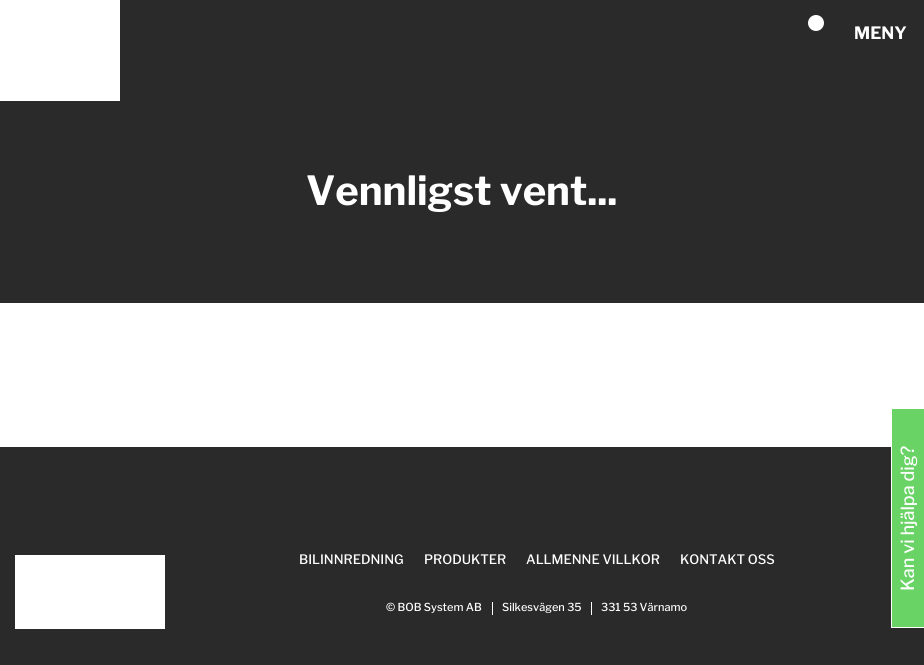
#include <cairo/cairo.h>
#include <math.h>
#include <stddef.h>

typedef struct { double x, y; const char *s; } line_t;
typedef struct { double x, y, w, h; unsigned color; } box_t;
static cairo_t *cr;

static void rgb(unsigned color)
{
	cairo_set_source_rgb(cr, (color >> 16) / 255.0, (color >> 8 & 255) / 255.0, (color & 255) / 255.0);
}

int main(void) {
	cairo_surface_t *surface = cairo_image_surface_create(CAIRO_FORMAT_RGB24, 924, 665);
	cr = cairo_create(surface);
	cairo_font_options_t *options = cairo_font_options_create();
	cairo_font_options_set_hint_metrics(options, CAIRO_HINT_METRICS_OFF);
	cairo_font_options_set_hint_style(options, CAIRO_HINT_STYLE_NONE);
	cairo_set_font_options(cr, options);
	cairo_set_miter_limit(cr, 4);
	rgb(0xffffff);
	cairo_paint(cr);
	rgb(0x2a2a2a);
	cairo_rectangle(cr, 0, 0, 924, 303);
	cairo_fill(cr);
	rgb(0xffffff);
	cairo_rectangle(cr, 0, 0, 120, 101);
	cairo_fill(cr);
	cairo_arc(cr, 816, 23, 8, 0, 2 * M_PI);
	cairo_fill(cr);
	{
		static const box_t items[] = {
			{0, 447, 924, 218, 0x2a2a2a},
			{15, 555, 150, 74, 0xffffff},
			{492, 602, 1, 13, 0xffffff},
			{591, 602, 1, 13, 0xffffff},
			{892, 409, 32, 218, 0x69d365},
			{891, 447, 1, 181, 0xffffff},
			{891, 627, 33, 1, 0xffffff},
		};
		for (size_t i = 0; i < sizeof items / sizeof *items; i++) {
			rgb(items[i].color);
			cairo_rectangle(cr, items[i].x, items[i].y, items[i].w, items[i].h);
			cairo_fill(cr);
		}
	}
	cairo_select_font_face(cr, "Libre Franklin", CAIRO_FONT_SLANT_NORMAL, CAIRO_FONT_WEIGHT_BOLD);
	cairo_set_font_size(cr, 17);
	cairo_move_to(cr, 854, 39);
	cairo_show_text(cr, "MENY");
	cairo_set_font_size(cr, 40);
	cairo_move_to(cr, 306, 205);
	cairo_show_text(cr, "Vennligst vent...");
	cairo_select_font_face(cr, "Libre Franklin Medium", CAIRO_FONT_SLANT_NORMAL, CAIRO_FONT_WEIGHT_NORMAL);
	cairo_set_font_size(cr, 13);
	{
		static const line_t items[] = {
			{299, 564, "BILINNREDNING"},
			{424, 564, "PRODUKTER"},
			{526, 564, "ALLMENNE VILLKOR"},
			{680, 564, "KONTAKT OSS"},
		};
		for (size_t i = 0; i < sizeof items / sizeof *items; i++) {
			cairo_move_to(cr, items[i].x, items[i].y);
			cairo_show_text(cr, items[i].s);
		}
	}
	cairo_set_font_size(cr, 11);
	{
		static const line_t items[] = {
			{386, 611, "© BOB System AB"},
			{502, 611, "Silkesvägen 35"},
			{601, 611, "331 53 Värnamo"},
		};
		for (size_t i = 0; i < sizeof items / sizeof *items; i++) {
			cairo_move_to(cr, items[i].x, items[i].y);
			cairo_show_text(cr, items[i].s);
		}
	}
	cairo_set_font_size(cr, 18);
	cairo_save(cr);
	cairo_translate(cr, 914, 591);
	cairo_rotate(cr, -90 * M_PI / 180);
	cairo_move_to(cr, 0, 0);
	cairo_show_text(cr, "Kan vi hjälpa dig?");
	cairo_restore(cr);
	cairo_surface_write_to_png(surface, "page.png");
	cairo_font_options_destroy(options);
	cairo_destroy(cr);
	cairo_surface_destroy(surface);
	return 0;
}
